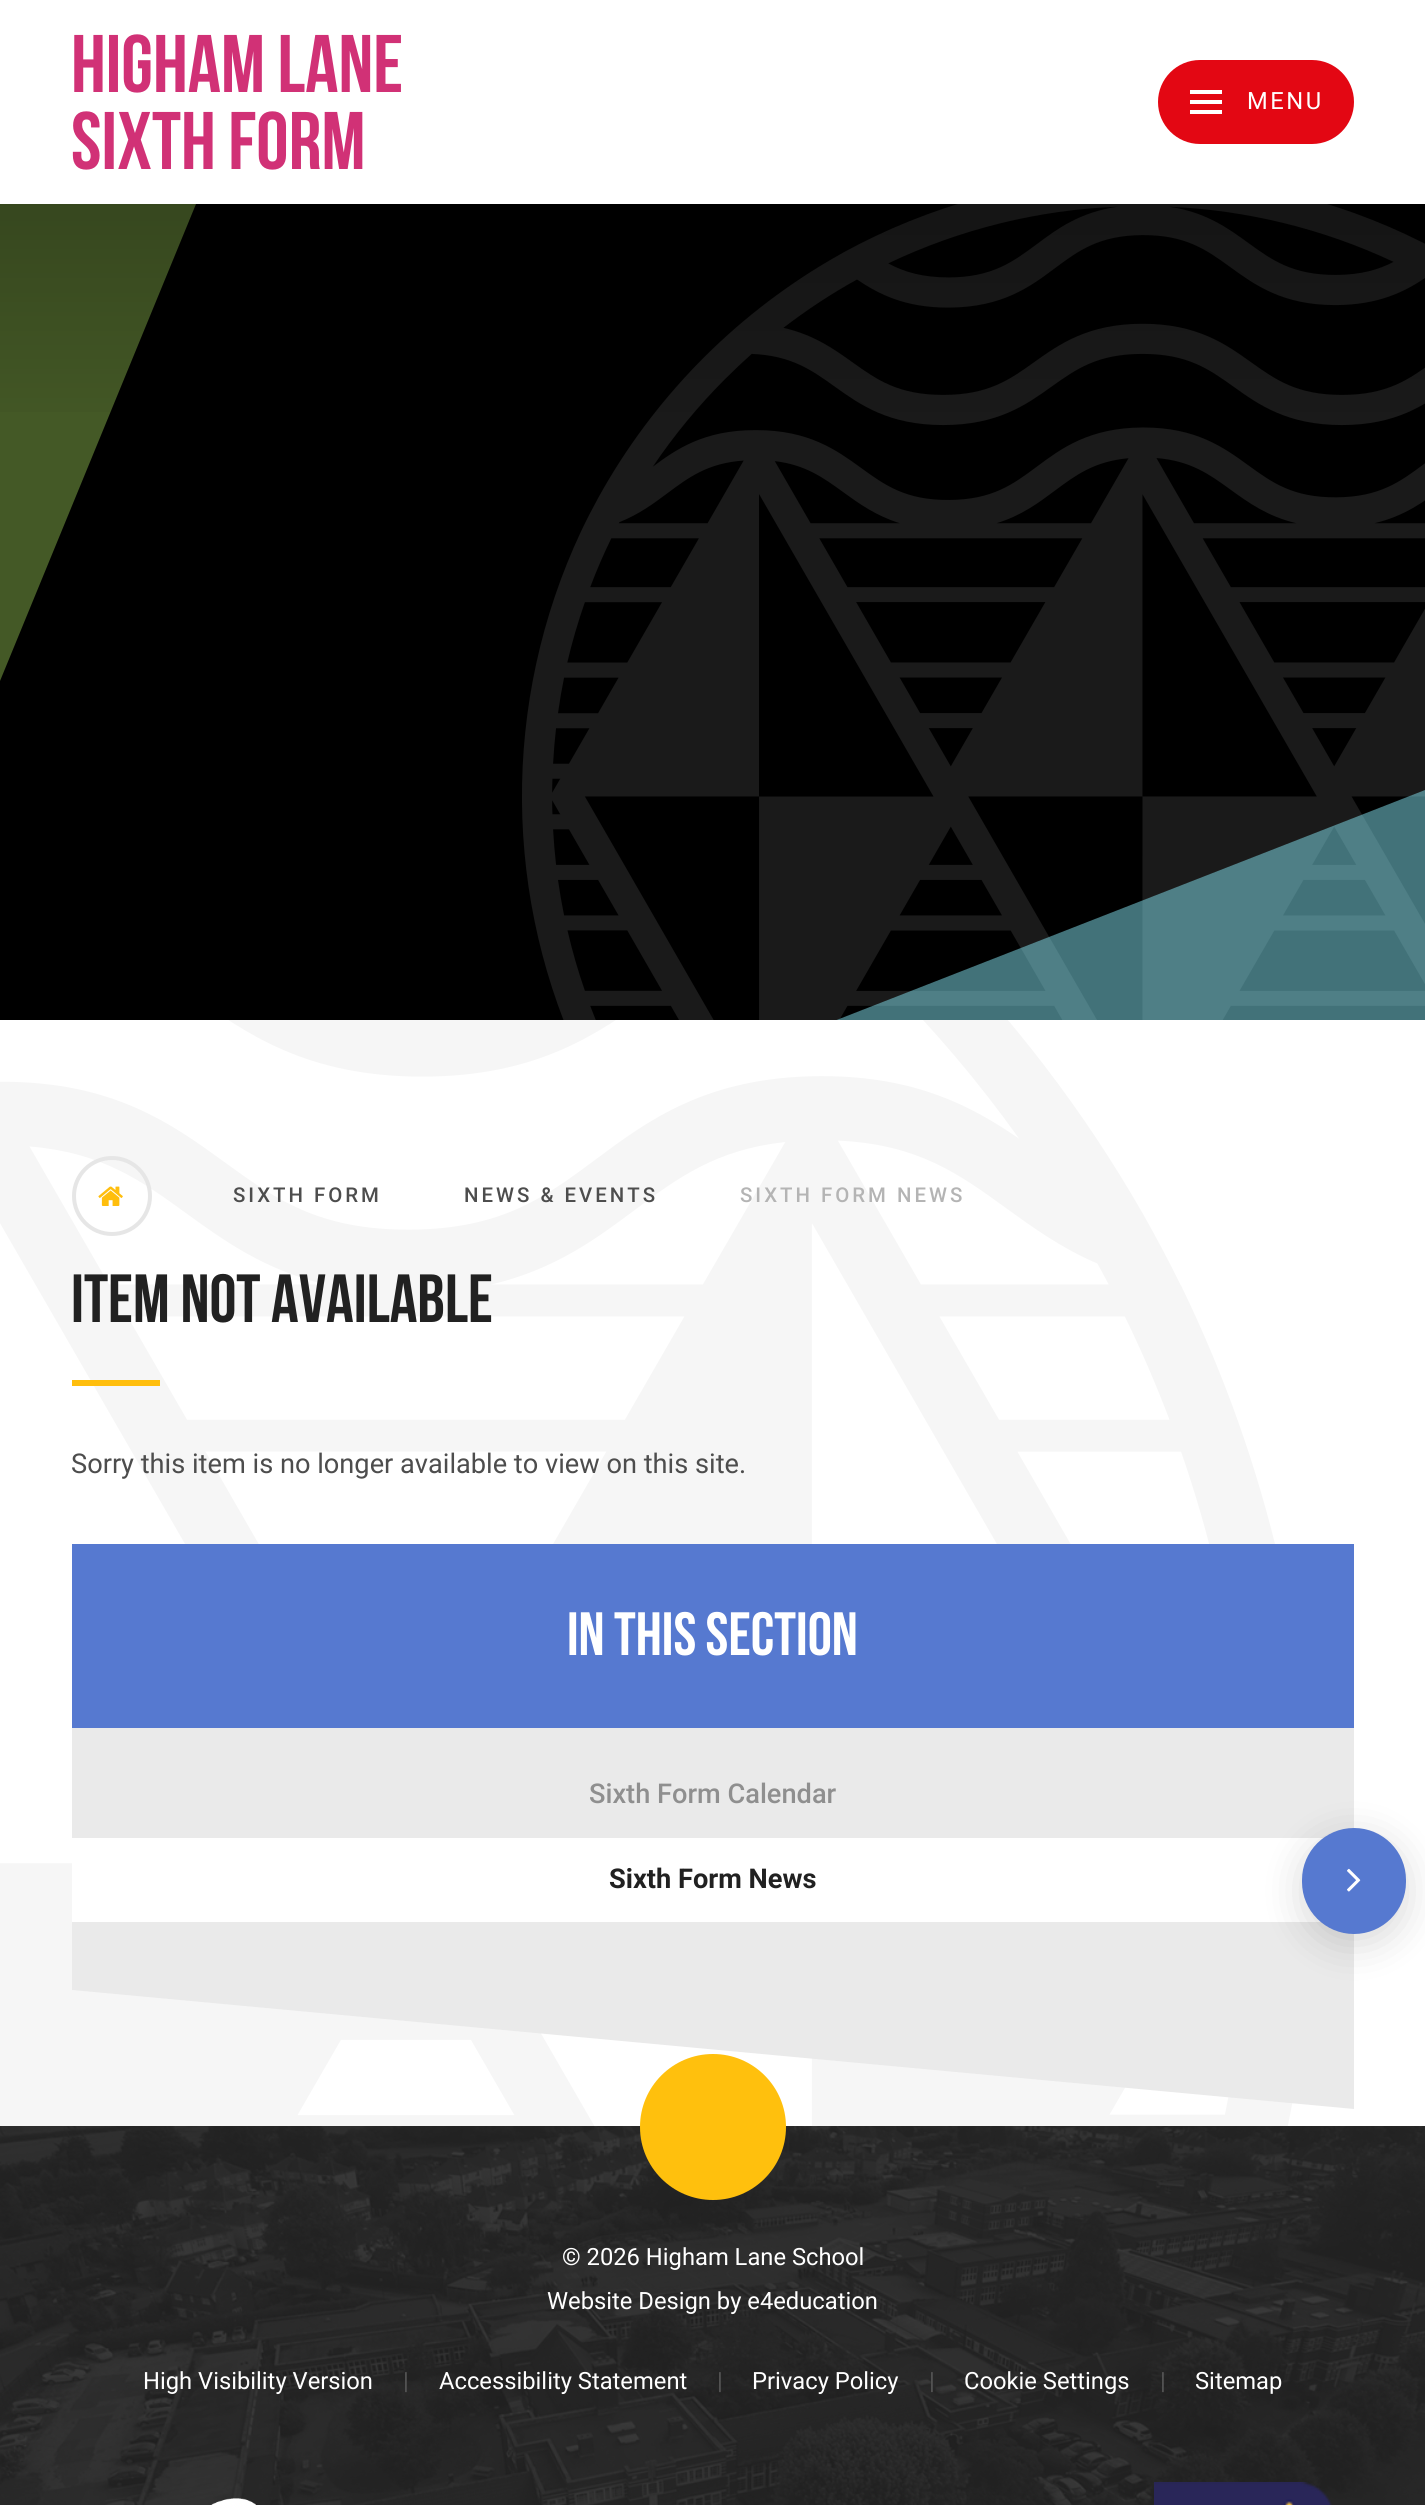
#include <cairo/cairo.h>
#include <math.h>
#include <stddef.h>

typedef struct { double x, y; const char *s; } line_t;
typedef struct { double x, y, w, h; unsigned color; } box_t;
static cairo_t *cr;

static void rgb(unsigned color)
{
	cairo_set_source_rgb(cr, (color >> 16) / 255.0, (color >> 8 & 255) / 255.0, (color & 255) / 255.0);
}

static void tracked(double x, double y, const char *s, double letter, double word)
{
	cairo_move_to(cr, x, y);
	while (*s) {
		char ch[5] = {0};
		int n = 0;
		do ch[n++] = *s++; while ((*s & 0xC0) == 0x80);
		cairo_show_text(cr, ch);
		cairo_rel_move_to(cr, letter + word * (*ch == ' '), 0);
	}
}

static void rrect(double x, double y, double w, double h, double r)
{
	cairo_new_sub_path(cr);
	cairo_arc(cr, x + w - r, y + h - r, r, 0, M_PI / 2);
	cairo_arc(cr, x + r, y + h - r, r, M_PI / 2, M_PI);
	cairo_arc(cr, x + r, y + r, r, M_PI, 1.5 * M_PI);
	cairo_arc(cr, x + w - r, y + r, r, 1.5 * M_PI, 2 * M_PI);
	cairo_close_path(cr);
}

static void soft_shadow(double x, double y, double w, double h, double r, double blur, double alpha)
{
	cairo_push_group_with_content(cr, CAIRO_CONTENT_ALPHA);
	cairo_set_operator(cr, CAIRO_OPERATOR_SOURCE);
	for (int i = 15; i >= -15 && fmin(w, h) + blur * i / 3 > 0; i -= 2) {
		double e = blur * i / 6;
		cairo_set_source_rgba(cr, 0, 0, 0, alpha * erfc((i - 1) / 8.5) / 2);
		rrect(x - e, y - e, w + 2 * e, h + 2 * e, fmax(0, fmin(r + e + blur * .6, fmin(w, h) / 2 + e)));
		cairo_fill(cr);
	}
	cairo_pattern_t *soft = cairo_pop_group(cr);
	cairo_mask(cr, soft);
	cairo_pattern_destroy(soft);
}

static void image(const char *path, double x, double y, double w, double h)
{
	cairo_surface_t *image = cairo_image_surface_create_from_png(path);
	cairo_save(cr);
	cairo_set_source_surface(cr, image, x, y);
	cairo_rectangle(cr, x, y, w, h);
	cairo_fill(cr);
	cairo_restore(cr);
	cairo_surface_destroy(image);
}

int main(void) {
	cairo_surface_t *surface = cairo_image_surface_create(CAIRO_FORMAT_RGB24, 1425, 2505);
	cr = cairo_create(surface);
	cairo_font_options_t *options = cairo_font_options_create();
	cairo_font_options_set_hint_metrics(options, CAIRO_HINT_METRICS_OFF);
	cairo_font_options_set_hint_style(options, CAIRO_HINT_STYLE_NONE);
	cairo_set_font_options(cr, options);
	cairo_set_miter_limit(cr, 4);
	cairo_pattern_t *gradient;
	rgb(0xffffff);
	cairo_paint(cr);
	rgb(0xe30713);
	rrect(1158, 60, 196, 84, 42);
	cairo_fill(cr);
	{
		static const box_t items[] = {
			{1190, 90, 32, 4, 0xffffff},
			{1190, 110, 32, 4, 0xffffff},
			{1190, 100, 32, 4, 0xffffff},
			{0, 204, 1425, 816, 0x000000},
		};
		for (size_t i = 0; i < sizeof items / sizeof *items; i++) {
			rgb(items[i].color);
			cairo_rectangle(cr, items[i].x, items[i].y, items[i].w, items[i].h);
			cairo_fill(cr);
		}
	}
	rgb(0x445926);
	cairo_set_fill_rule(cr, CAIRO_FILL_RULE_EVEN_ODD);
	cairo_new_path(cr);
	cairo_move_to(cr, 196, 204);
	cairo_line_to(cr, 0, 681);
	cairo_line_to(cr, 0, 204);
	cairo_close_path(cr);
	cairo_fill(cr);
	image("img/1.png", 522, 204, 903, 816);
	gradient = cairo_pattern_create_linear(713, 204, 713, 448);
	cairo_pattern_add_color_stop_rgba(gradient, 0, 0, 0, 0, 0.2);
	cairo_pattern_add_color_stop_rgba(gradient, 1, 0, 0, 0, 0);
	cairo_set_source(cr, gradient);
	cairo_pattern_destroy(gradient);
	cairo_rectangle(cr, 0, 204, 1425, 208);
	cairo_fill(cr);
	cairo_save(cr);
	cairo_set_fill_rule(cr, CAIRO_FILL_RULE_WINDING);
	cairo_rectangle(cr, 834, 790, 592, 230);
	cairo_clip(cr);
	cairo_set_source_rgba(cr, 0.522, 0.898, 0.953, 0.5);
	cairo_set_fill_rule(cr, CAIRO_FILL_RULE_EVEN_ODD);
	cairo_new_path(cr);
	cairo_move_to(cr, 1425, 790);
	cairo_line_to(cr, 834, 1021);
	cairo_line_to(cr, 1425, 1022);
	cairo_close_path(cr);
	cairo_fill(cr);
	cairo_restore(cr);
	image("img/4.png", 0, 1020, 1293, 1106);
	cairo_arc(cr, 112, 1196, 38, 0, 2 * M_PI);
	rgb(0xe6e6e6);
	cairo_set_line_width(cr, 4);
	cairo_stroke(cr);
	image("img/2.png", 98, 1186, 25, 20);
	{
		static const box_t items[] = {
			{72, 1380, 88, 6, 0xffbe0d},
			{72, 1544, 1282, 184, 0x5679d0},
			{72, 1728, 1282, 262, 0xeaeaea},
			{72, 1838, 1252, 84, 0xffffff},
		};
		for (size_t i = 0; i < sizeof items / sizeof *items; i++) {
			rgb(items[i].color);
			cairo_rectangle(cr, items[i].x, items[i].y, items[i].w, items[i].h);
			cairo_fill(cr);
		}
	}
	rgb(0x000000);
	soft_shadow(1302, 1838, 104, 106, 52, 20, 0.15);
	rgb(0x5679d0);
	rrect(1302, 1828, 104, 106, 52);
	cairo_fill(cr);
	image("img/3.png", 1347, 1868, 14, 24);
	rgb(0xeaeaea);
	cairo_set_fill_rule(cr, CAIRO_FILL_RULE_WINDING);
	cairo_new_path(cr);
	cairo_move_to(cr, 72, 1990);
	cairo_line_to(cr, 1354, 1990);
	cairo_line_to(cr, 1354, 2109);
	cairo_close_path(cr);
	cairo_fill(cr);
	rgb(0x222222);
	cairo_rectangle(cr, 0, 2126, 1425, 379);
	cairo_fill(cr);
	image("img/5.png", 0, 2126, 1425, 379);
	rgb(0xffc00d);
	cairo_arc(cr, 713, 2127, 73, 0, 2 * M_PI);
	cairo_fill(cr);
	image("img/6.png", 211, 2498, 45, 7);
	image("img/7.png", 1154, 2482, 178, 23);
	cairo_select_font_face(cr, "Bebas Neue", CAIRO_FONT_SLANT_NORMAL, CAIRO_FONT_WEIGHT_BOLD);
	cairo_set_font_size(cr, 81.5);
	rgb(0xd13176);
	cairo_move_to(cr, 71, 92);
	cairo_show_text(cr, "HIGHAM LANE");
	cairo_move_to(cr, 71, 169);
	cairo_show_text(cr, "SIXTH FORM");
	cairo_select_font_face(cr, "Roboto", CAIRO_FONT_SLANT_NORMAL, CAIRO_FONT_WEIGHT_NORMAL);
	cairo_set_font_size(cr, 23.75);
	rgb(0xffffff);
	tracked(1247, 109, "MENU", 2.5, 0);
	cairo_select_font_face(cr, "Roboto Medium", CAIRO_FONT_SLANT_NORMAL, CAIRO_FONT_WEIGHT_NORMAL);
	cairo_set_font_size(cr, 20.4);
	rgb(0x4d4d4d);
	tracked(233, 1202, "SIXTH FORM", 3, 0);
	tracked(464, 1202, "NEWS & EVENTS", 3, 0);
	rgb(0xb4b4b4);
	tracked(740, 1202, "SIXTH FORM NEWS", 3, 0);
	cairo_select_font_face(cr, "Bebas Neue", CAIRO_FONT_SLANT_NORMAL, CAIRO_FONT_WEIGHT_BOLD);
	cairo_set_font_size(cr, 68);
	rgb(0x212121);
	cairo_move_to(cr, 71, 1322);
	cairo_show_text(cr, "Item Not Available");
	cairo_select_font_face(cr, "Roboto", CAIRO_FONT_SLANT_NORMAL, CAIRO_FONT_WEIGHT_NORMAL);
	cairo_set_font_size(cr, 27.2);
	rgb(0x4d4d4d);
	cairo_move_to(cr, 71, 1473);
	cairo_show_text(cr, "Sorry this item is no longer available to view on this site.");
	cairo_select_font_face(cr, "Bebas Neue", CAIRO_FONT_SLANT_NORMAL, CAIRO_FONT_WEIGHT_BOLD);
	cairo_set_font_size(cr, 61);
	rgb(0xffffff);
	cairo_move_to(cr, 567, 1655);
	cairo_show_text(cr, "In This Section");
	cairo_select_font_face(cr, "Roboto Medium", CAIRO_FONT_SLANT_NORMAL, CAIRO_FONT_WEIGHT_NORMAL);
	cairo_set_font_size(cr, 27.2);
	rgb(0x8f8f8f);
	cairo_move_to(cr, 589, 1803);
	cairo_show_text(cr, "Sixth Form Calendar");
	cairo_select_font_face(cr, "Roboto", CAIRO_FONT_SLANT_NORMAL, CAIRO_FONT_WEIGHT_BOLD);
	rgb(0x212121);
	cairo_move_to(cr, 609, 1888);
	cairo_show_text(cr, "Sixth Form News");
	cairo_select_font_face(cr, "Roboto", CAIRO_FONT_SLANT_NORMAL, CAIRO_FONT_WEIGHT_NORMAL);
	cairo_set_font_size(cr, 23.75);
	rgb(0xffffff);
	{
		static const line_t items[] = {
			{562, 2265, "© 2026 Higham Lane School"},
			{547, 2309, "Website Design by e4education"},
			{143, 2389, "High Visibility Version"},
		};
		for (size_t i = 0; i < sizeof items / sizeof *items; i++) {
			cairo_move_to(cr, items[i].x, items[i].y);
			cairo_show_text(cr, items[i].s);
		}
	}
	rgb(0x545454);
	cairo_move_to(cr, 403, 2389);
	cairo_show_text(cr, "|");
	rgb(0xffffff);
	cairo_move_to(cr, 439, 2389);
	cairo_show_text(cr, "Accessibility Statement");
	rgb(0x545454);
	cairo_move_to(cr, 717, 2389);
	cairo_show_text(cr, "|");
	rgb(0xffffff);
	cairo_move_to(cr, 752, 2389);
	cairo_show_text(cr, "Privacy Policy");
	rgb(0x545454);
	cairo_move_to(cr, 929, 2389);
	cairo_show_text(cr, "|");
	rgb(0xffffff);
	cairo_move_to(cr, 964, 2389);
	cairo_show_text(cr, "Cookie Settings");
	rgb(0x545454);
	cairo_move_to(cr, 1160, 2389);
	cairo_show_text(cr, "|");
	rgb(0xffffff);
	cairo_move_to(cr, 1195, 2389);
	cairo_show_text(cr, "Sitemap");
	cairo_surface_write_to_png(surface, "page.png");
	cairo_font_options_destroy(options);
	cairo_destroy(cr);
	cairo_surface_destroy(surface);
	return 0;
}
